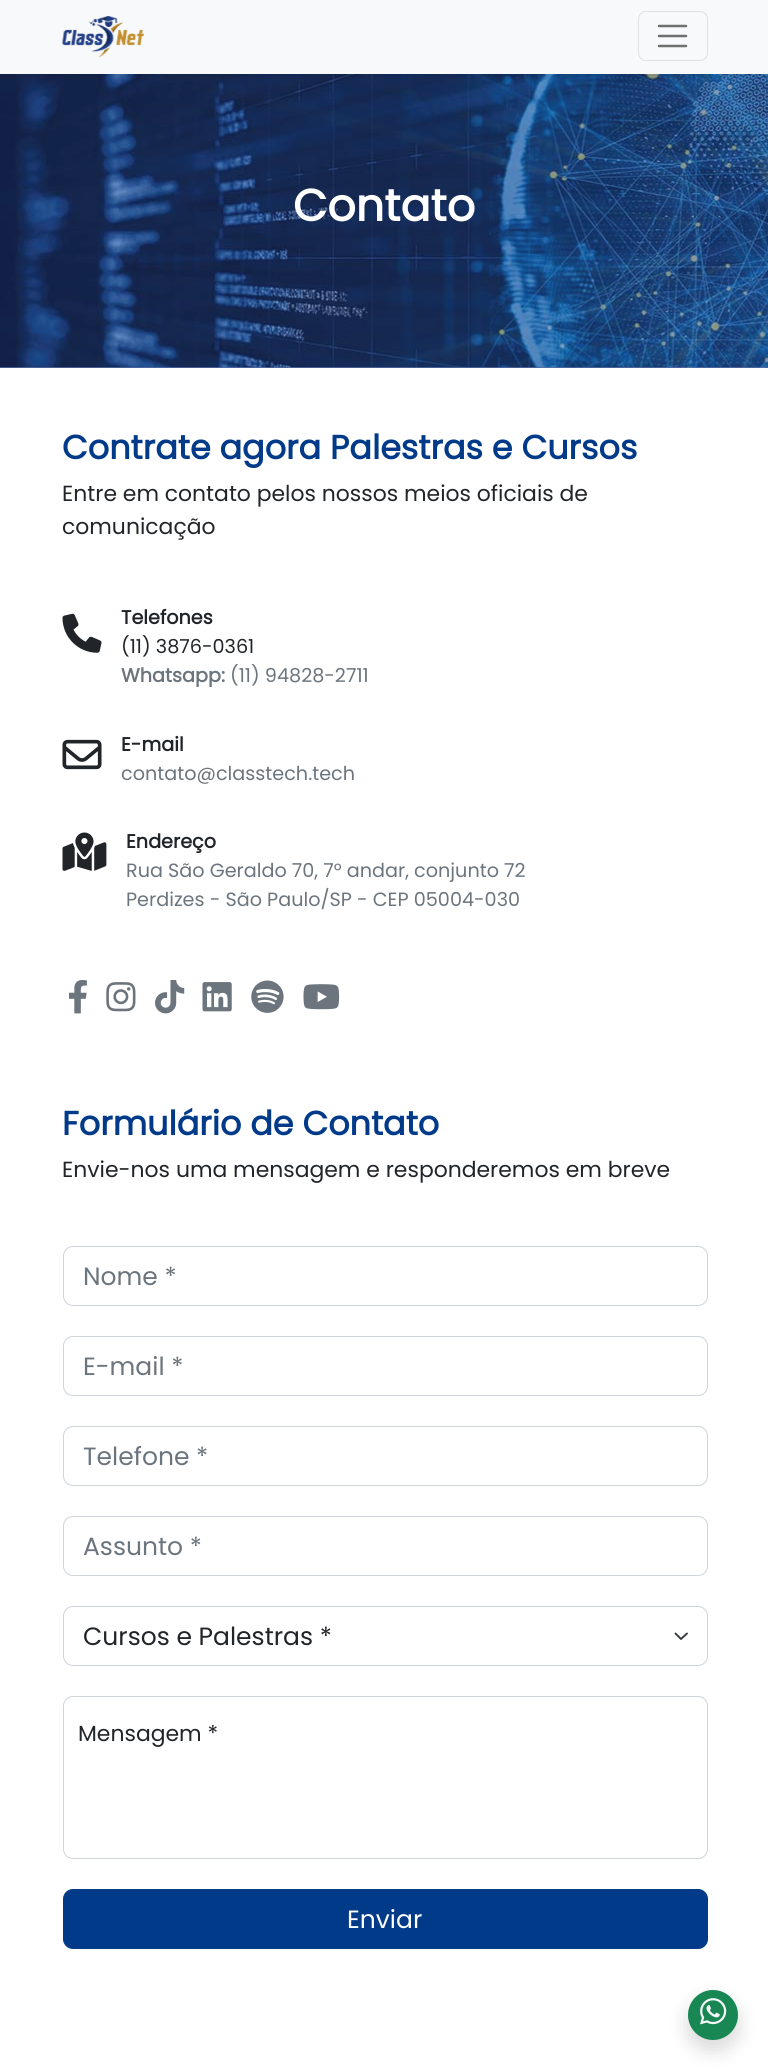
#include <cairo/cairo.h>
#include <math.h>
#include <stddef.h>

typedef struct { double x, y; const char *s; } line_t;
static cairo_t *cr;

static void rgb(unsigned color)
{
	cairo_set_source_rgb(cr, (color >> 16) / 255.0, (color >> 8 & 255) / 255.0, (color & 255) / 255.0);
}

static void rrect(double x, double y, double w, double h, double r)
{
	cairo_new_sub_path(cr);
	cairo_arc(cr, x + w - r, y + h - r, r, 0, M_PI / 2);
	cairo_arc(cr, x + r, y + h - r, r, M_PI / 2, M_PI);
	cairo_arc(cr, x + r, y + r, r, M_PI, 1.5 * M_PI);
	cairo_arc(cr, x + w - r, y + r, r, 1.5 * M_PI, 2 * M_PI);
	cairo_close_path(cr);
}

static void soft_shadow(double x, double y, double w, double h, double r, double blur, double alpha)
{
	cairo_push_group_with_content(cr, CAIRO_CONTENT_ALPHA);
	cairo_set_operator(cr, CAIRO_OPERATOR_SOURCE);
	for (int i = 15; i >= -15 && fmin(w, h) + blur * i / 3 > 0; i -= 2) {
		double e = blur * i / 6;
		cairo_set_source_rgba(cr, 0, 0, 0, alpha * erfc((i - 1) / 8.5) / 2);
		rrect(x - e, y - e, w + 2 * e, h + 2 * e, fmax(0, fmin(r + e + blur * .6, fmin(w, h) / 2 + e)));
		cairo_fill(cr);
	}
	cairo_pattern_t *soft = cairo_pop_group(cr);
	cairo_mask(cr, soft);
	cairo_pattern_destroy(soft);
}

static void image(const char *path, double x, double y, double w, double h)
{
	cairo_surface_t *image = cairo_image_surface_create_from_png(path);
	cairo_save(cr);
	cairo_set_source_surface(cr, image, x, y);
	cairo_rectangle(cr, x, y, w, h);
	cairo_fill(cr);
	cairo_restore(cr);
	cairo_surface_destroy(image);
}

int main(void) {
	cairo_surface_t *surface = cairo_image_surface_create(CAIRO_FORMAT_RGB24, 768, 2071);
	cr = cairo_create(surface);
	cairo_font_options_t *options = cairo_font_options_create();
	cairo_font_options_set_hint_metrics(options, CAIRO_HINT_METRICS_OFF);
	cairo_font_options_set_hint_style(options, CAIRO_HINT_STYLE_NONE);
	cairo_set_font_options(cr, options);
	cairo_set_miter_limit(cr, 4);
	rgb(0xffffff);
	cairo_paint(cr);
	rgb(0x586ea5);
	cairo_rectangle(cr, 0, 367, 768, 1);
	cairo_fill(cr);
	image("img/2.png", 0, 74, 768, 294);
	rgb(0x000000);
	soft_shadow(0, 3, 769, 73, 0, 2.5, 0.07);
	rgb(0xf8f9fa);
	cairo_rectangle(cr, 0, 0, 768, 74);
	cairo_fill(cr);
	image("img/1.png", 62, 16, 82, 42);
	rrect(638.5, 11.5, 69, 49, 7.5);
	rgb(0xdfe0e1);
	cairo_set_line_width(cr, 1);
	cairo_stroke(cr);
	cairo_new_path(cr);
	cairo_move_to(cr, 659, 26);
	cairo_line_to(cr, 686, 26);
	cairo_move_to(cr, 659, 36);
	cairo_line_to(cr, 686, 36);
	cairo_move_to(cr, 659, 46);
	cairo_line_to(cr, 686, 46);
	rgb(0x707071);
	cairo_set_line_width(cr, 2.5);
	cairo_set_line_cap(cr, CAIRO_LINE_CAP_ROUND);
	cairo_stroke(cr);
	image("img/3.png", 62, 613, 40, 40);
	image("img/4.png", 62, 739, 40, 31);
	image("img/5.png", 62, 832, 45, 39);
	image("img/6.png", 69, 980, 18, 34);
	image("img/7.png", 106, 982, 30, 30);
	image("img/8.png", 155, 980, 30, 34);
	image("img/9.png", 202, 982, 30, 30);
	image("img/10.png", 251, 980, 33, 33);
	image("img/11.png", 303, 984, 37, 26);
	rrect(63.5, 1246.5, 644, 59, 9.5);
	rgb(0xced4da);
	cairo_set_line_width(cr, 1);
	cairo_set_line_cap(cr, CAIRO_LINE_CAP_BUTT);
	cairo_stroke(cr);
	rrect(63.5, 1336.5, 644, 59, 9.5);
	cairo_stroke(cr);
	rrect(63.5, 1426.5, 644, 59, 9.5);
	cairo_stroke(cr);
	rrect(63.5, 1516.5, 644, 59, 9.5);
	cairo_stroke(cr);
	cairo_new_path(cr);
	cairo_move_to(cr, 675.5, 1633.5);
	cairo_line_to(cr, 681, 1639);
	cairo_line_to(cr, 687, 1633.5);
	rgb(0x343a40);
	cairo_set_line_width(cr, 1.9);
	cairo_set_line_cap(cr, CAIRO_LINE_CAP_ROUND);
	cairo_set_line_join(cr, CAIRO_LINE_JOIN_ROUND);
	cairo_stroke(cr);
	rrect(63.5, 1606.5, 644, 59, 9.5);
	rgb(0xced4da);
	cairo_set_line_width(cr, 1);
	cairo_set_line_cap(cr, CAIRO_LINE_CAP_BUTT);
	cairo_set_line_join(cr, CAIRO_LINE_JOIN_MITER);
	cairo_stroke(cr);
	rrect(63.5, 1696.5, 644, 162, 9.5);
	cairo_stroke(cr);
	rgb(0x003a89);
	rrect(63.5, 1889.5, 644, 59, 9.5);
	cairo_fill_preserve(cr);
	cairo_stroke(cr);
	rgb(0x000000);
	soft_shadow(688, 2000, 50, 50, 25, 10, 0.15);
	rgb(0x198754);
	cairo_arc(cr, 713, 2015, 25, 0, 2 * M_PI);
	cairo_fill(cr);
	image("img/12.png", 700, 1998, 27, 27);
	cairo_select_font_face(cr, "Poppins", CAIRO_FONT_SLANT_NORMAL, CAIRO_FONT_WEIGHT_BOLD);
	cairo_set_font_size(cr, 44.5);
	rgb(0xffffff);
	cairo_move_to(cr, 293, 221);
	cairo_show_text(cr, "Contato");
	cairo_set_font_size(cr, 33.4);
	rgb(0x003a89);
	cairo_move_to(cr, 62, 459);
	cairo_show_text(cr, "Contrate agora Palestras e Cursos");
	cairo_select_font_face(cr, "Poppins", CAIRO_FONT_SLANT_NORMAL, CAIRO_FONT_WEIGHT_NORMAL);
	cairo_set_font_size(cr, 21.9);
	rgb(0x212529);
	cairo_move_to(cr, 62, 501);
	cairo_show_text(cr, "Entre em contato pelos nossos meios oficiais de");
	cairo_move_to(cr, 62, 534);
	cairo_show_text(cr, "comunicação");
	cairo_select_font_face(cr, "Poppins", CAIRO_FONT_SLANT_NORMAL, CAIRO_FONT_WEIGHT_BOLD);
	cairo_set_font_size(cr, 19.2);
	cairo_move_to(cr, 121, 624);
	cairo_show_text(cr, "Telefones");
	cairo_select_font_face(cr, "Poppins", CAIRO_FONT_SLANT_NORMAL, CAIRO_FONT_WEIGHT_NORMAL);
	cairo_move_to(cr, 121, 653);
	cairo_show_text(cr, "(11) 3876-0361");
	cairo_select_font_face(cr, "Poppins", CAIRO_FONT_SLANT_NORMAL, CAIRO_FONT_WEIGHT_BOLD);
	rgb(0x6c757d);
	cairo_move_to(cr, 121, 682);
	cairo_show_text(cr, "Whatsapp:");
	cairo_select_font_face(cr, "Poppins", CAIRO_FONT_SLANT_NORMAL, CAIRO_FONT_WEIGHT_NORMAL);
	cairo_move_to(cr, 230, 682);
	cairo_show_text(cr, "(11) 94828-2711");
	cairo_select_font_face(cr, "Poppins", CAIRO_FONT_SLANT_NORMAL, CAIRO_FONT_WEIGHT_BOLD);
	rgb(0x212529);
	cairo_move_to(cr, 121, 751);
	cairo_show_text(cr, "E-mail");
	cairo_select_font_face(cr, "Poppins", CAIRO_FONT_SLANT_NORMAL, CAIRO_FONT_WEIGHT_NORMAL);
	rgb(0x6c757d);
	cairo_move_to(cr, 121, 780);
	cairo_show_text(cr, "contato@classtech.tech");
	cairo_select_font_face(cr, "Poppins", CAIRO_FONT_SLANT_NORMAL, CAIRO_FONT_WEIGHT_BOLD);
	rgb(0x212529);
	cairo_move_to(cr, 126, 848);
	cairo_show_text(cr, "Endereço");
	cairo_select_font_face(cr, "Poppins", CAIRO_FONT_SLANT_NORMAL, CAIRO_FONT_WEIGHT_NORMAL);
	rgb(0x6c757d);
	cairo_move_to(cr, 126, 877);
	cairo_show_text(cr, "Rua São Geraldo 70, 7° andar, conjunto 72");
	cairo_move_to(cr, 126, 906);
	cairo_show_text(cr, "Perdizes - São Paulo/SP - CEP 05004-030");
	cairo_select_font_face(cr, "Poppins", CAIRO_FONT_SLANT_NORMAL, CAIRO_FONT_WEIGHT_BOLD);
	cairo_set_font_size(cr, 33.4);
	rgb(0x003a89);
	cairo_move_to(cr, 62, 1135);
	cairo_show_text(cr, "Formulário de Contato");
	cairo_select_font_face(cr, "Poppins", CAIRO_FONT_SLANT_NORMAL, CAIRO_FONT_WEIGHT_NORMAL);
	cairo_set_font_size(cr, 21.9);
	rgb(0x212529);
	cairo_move_to(cr, 62, 1177);
	cairo_show_text(cr, "Envie-nos uma mensagem e responderemos em breve");
	cairo_set_font_size(cr, 25);
	rgb(0x6c757d);
	{
		static const line_t items[] = {
			{83, 1285, "Nome *"},
			{83, 1375, "E-mail *"},
			{83, 1465, "Telefone *"},
			{83, 1555, "Assunto *"},
		};
		for (size_t i = 0; i < sizeof items / sizeof *items; i++) {
			cairo_move_to(cr, items[i].x, items[i].y);
			cairo_show_text(cr, items[i].s);
		}
	}
	rgb(0x212529);
	cairo_move_to(cr, 83, 1645);
	cairo_show_text(cr, "Cursos e Palestras *");
	cairo_set_font_size(cr, 21.9);
	cairo_move_to(cr, 78, 1741);
	cairo_show_text(cr, "Mensagem *");
	cairo_set_font_size(cr, 25);
	rgb(0xffffff);
	cairo_move_to(cr, 347, 1928);
	cairo_show_text(cr, "Enviar");
	cairo_surface_write_to_png(surface, "page.png");
	cairo_font_options_destroy(options);
	cairo_destroy(cr);
	cairo_surface_destroy(surface);
	return 0;
}
